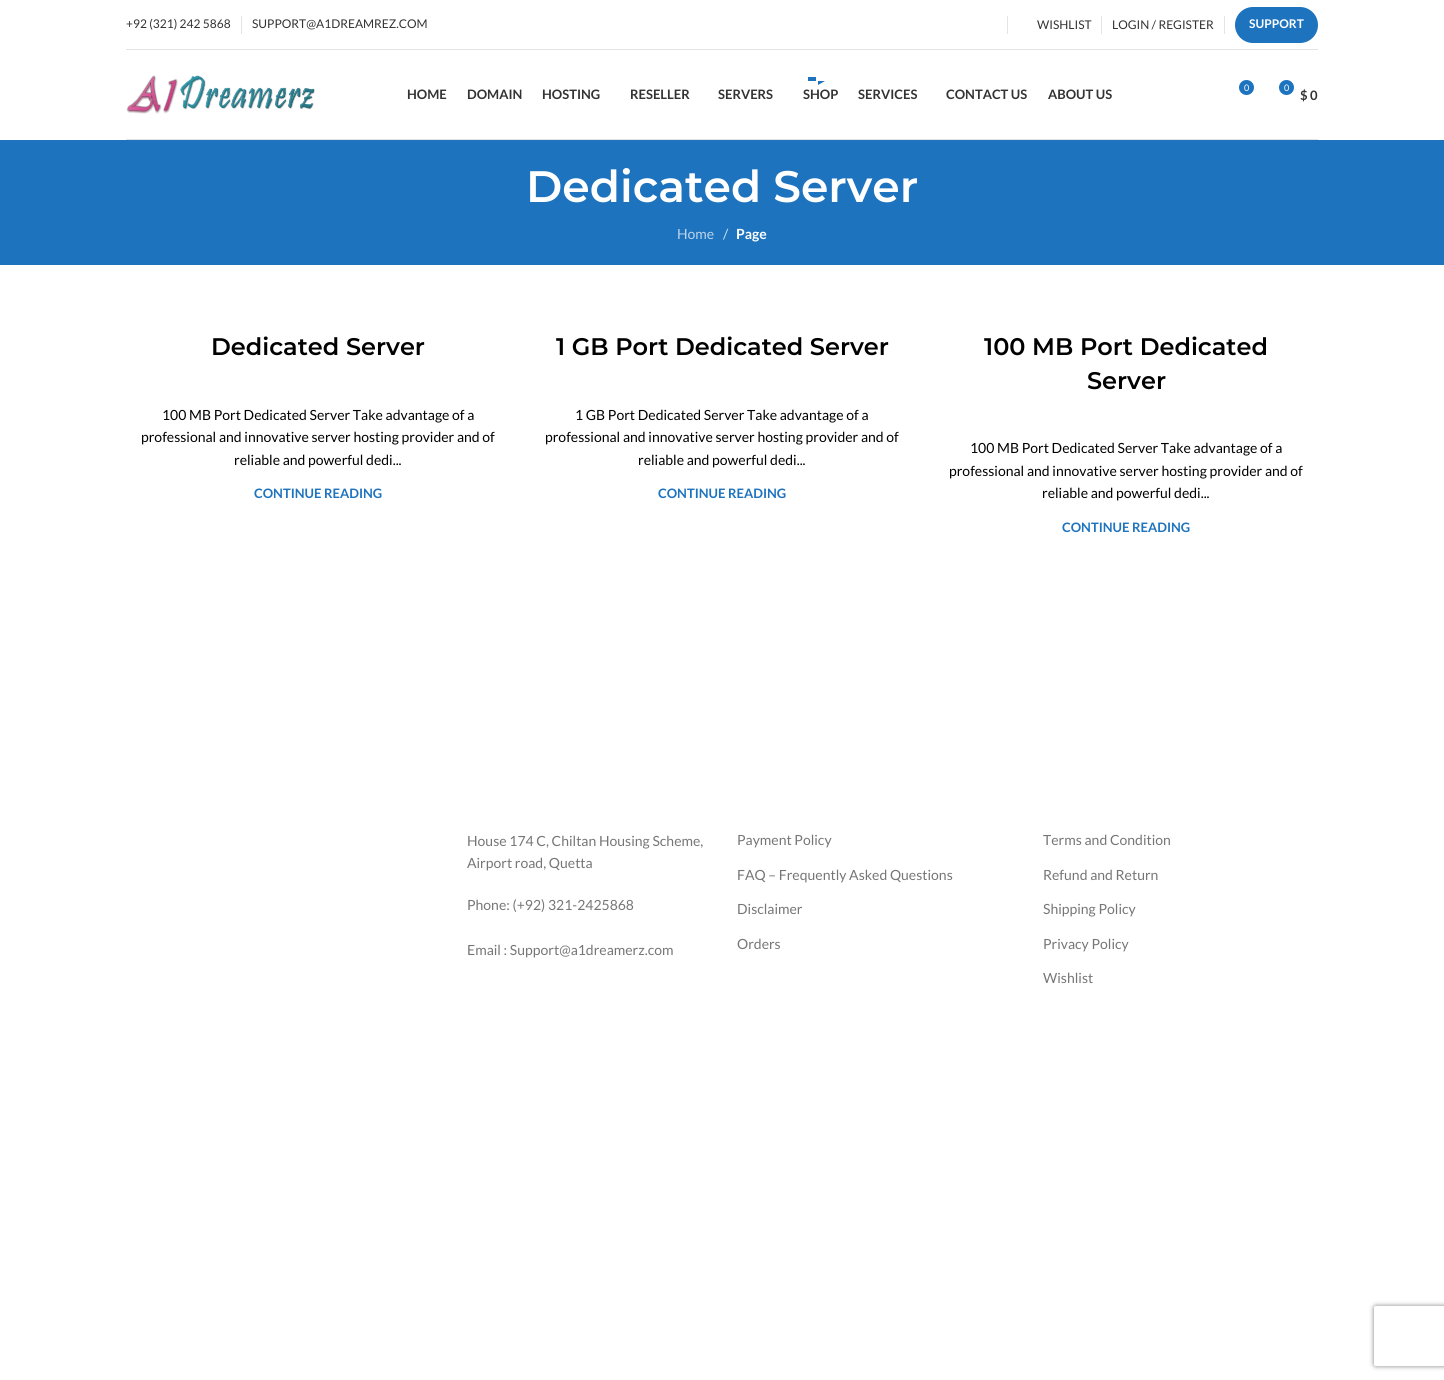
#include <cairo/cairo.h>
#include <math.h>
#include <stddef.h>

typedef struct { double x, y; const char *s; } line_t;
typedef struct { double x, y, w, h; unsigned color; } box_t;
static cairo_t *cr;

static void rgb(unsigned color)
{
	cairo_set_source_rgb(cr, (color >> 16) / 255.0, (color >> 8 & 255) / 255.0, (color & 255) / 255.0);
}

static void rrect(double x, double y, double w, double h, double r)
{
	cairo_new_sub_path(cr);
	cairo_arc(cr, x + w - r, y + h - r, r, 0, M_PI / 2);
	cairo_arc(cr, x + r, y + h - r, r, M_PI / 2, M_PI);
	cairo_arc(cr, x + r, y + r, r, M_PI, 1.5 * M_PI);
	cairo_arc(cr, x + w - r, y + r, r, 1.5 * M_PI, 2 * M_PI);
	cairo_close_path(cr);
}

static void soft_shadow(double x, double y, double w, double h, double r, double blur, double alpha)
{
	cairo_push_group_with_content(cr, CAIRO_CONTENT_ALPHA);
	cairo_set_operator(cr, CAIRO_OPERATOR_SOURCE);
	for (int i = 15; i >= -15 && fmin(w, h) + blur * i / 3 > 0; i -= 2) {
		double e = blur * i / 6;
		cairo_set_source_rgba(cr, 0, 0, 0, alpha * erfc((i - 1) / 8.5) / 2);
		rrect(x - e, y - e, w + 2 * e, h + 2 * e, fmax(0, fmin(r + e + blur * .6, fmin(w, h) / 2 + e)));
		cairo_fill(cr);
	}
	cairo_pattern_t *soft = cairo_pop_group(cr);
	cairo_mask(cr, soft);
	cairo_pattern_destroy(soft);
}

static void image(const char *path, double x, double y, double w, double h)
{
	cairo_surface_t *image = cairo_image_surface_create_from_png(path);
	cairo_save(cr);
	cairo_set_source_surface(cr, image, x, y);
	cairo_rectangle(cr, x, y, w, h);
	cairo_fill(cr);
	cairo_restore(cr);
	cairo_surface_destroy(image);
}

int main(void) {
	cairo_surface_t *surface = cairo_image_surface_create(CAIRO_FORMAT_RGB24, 1444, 1380);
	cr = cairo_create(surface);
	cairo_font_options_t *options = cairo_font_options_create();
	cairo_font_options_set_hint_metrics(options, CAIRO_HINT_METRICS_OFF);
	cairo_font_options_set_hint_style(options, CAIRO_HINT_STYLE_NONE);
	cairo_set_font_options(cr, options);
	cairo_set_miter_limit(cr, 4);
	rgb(0xffffff);
	cairo_paint(cr);
	{
		static const box_t items[] = {
			{126, 49, 1192, 1, 0xe3e3e3},
			{241, 16, 1, 18, 0xe4e4e4},
			{1007, 16, 1, 18, 0xe4e4e4},
			{1101, 16, 1, 18, 0xe4e4e4},
			{1224, 16, 1, 18, 0xe4e4e4},
		};
		for (size_t i = 0; i < sizeof items / sizeof *items; i++) {
			rgb(items[i].color);
			cairo_rectangle(cr, items[i].x, items[i].y, items[i].w, items[i].h);
			cairo_fill(cr);
		}
	}
	rgb(0x1e73be);
	rrect(1235, 7, 83, 36, 18);
	cairo_fill(cr);
	rgb(0xe3e3e3);
	cairo_rectangle(cr, 126, 139, 1192, 1);
	cairo_fill(cr);
	image("img/1.png", 126, 75, 189, 39);
	rgb(0x1e73be);
	cairo_rectangle(cr, 808, 77, 8, 4);
	cairo_fill(cr);
	cairo_new_path(cr);
	cairo_move_to(cr, 818, 81);
	cairo_line_to(cr, 825, 81);
	cairo_line_to(cr, 818, 85);
	cairo_close_path(cr);
	cairo_fill(cr);
	cairo_arc(cr, 1246.5, 87.5, 7.5, 0, 2 * M_PI);
	cairo_fill(cr);
	cairo_arc(cr, 1286.5, 87.5, 7.5, 0, 2 * M_PI);
	cairo_fill(cr);
	cairo_rectangle(cr, 0, 140, 1444, 125);
	cairo_fill(cr);
	cairo_save(cr);
	cairo_set_fill_rule(cr, CAIRO_FILL_RULE_EVEN_ODD);
	cairo_new_path(cr);
	cairo_move_to(cr, 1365, 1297);
	cairo_line_to(cr, 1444, 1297);
	cairo_line_to(cr, 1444, 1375);
	cairo_line_to(cr, 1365, 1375);
	cairo_close_path(cr);
	cairo_move_to(cr, 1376, 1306);
	cairo_line_to(cr, 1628, 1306);
	cairo_curve_to(cr, 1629, 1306, 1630, 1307, 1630, 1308);
	cairo_line_to(cr, 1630, 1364);
	cairo_curve_to(cr, 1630, 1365, 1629, 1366, 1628, 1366);
	cairo_line_to(cr, 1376, 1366);
	cairo_curve_to(cr, 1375, 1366, 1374, 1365, 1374, 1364);
	cairo_line_to(cr, 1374, 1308);
	cairo_curve_to(cr, 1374, 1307, 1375, 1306, 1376, 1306);
	cairo_close_path(cr);
	cairo_clip(cr);
	rgb(0x808080);
	soft_shadow(1374, 1306, 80, 60, 2, 2.5, 1);
	cairo_restore(cr);
	cairo_select_font_face(cr, "Lato", CAIRO_FONT_SLANT_NORMAL, CAIRO_FONT_WEIGHT_NORMAL);
	cairo_set_font_size(cr, 12);
	rgb(0x333333);
	{
		static const line_t items[] = {
			{126, 28, "+92 (321) 242 5868"},
			{252, 28, "SUPPORT@A1DREAMREZ.COM"},
			{1037, 29, "WISHLIST"},
			{1112, 29, "LOGIN / REGISTER"},
		};
		for (size_t i = 0; i < sizeof items / sizeof *items; i++) {
			cairo_move_to(cr, items[i].x, items[i].y);
			cairo_show_text(cr, items[i].s);
		}
	}
	cairo_select_font_face(cr, "Lato", CAIRO_FONT_SLANT_NORMAL, CAIRO_FONT_WEIGHT_BOLD);
	rgb(0xffffff);
	cairo_move_to(cr, 1249, 28);
	cairo_show_text(cr, "SUPPORT");
	cairo_set_font_size(cr, 13);
	rgb(0x333333);
	{
		static const line_t items[] = {
			{407, 99, "HOME"},
			{467, 99, "DOMAIN"},
			{542, 99, "HOSTING"},
			{630, 99, "RESELLER"},
			{718, 99, "SERVERS"},
			{803, 99, "SHOP"},
			{858, 99, "SERVICES"},
			{946, 99, "CONTACT US"},
			{1048, 99, "ABOUT US"},
		};
		for (size_t i = 0; i < sizeof items / sizeof *items; i++) {
			cairo_move_to(cr, items[i].x, items[i].y);
			cairo_show_text(cr, items[i].s);
		}
	}
	cairo_select_font_face(cr, "Lato", CAIRO_FONT_SLANT_NORMAL, CAIRO_FONT_WEIGHT_NORMAL);
	cairo_set_font_size(cr, 9);
	rgb(0xffffff);
	cairo_move_to(cr, 1244, 91);
	cairo_show_text(cr, "0");
	cairo_move_to(cr, 1284, 91);
	cairo_show_text(cr, "0");
	cairo_select_font_face(cr, "Lato", CAIRO_FONT_SLANT_NORMAL, CAIRO_FONT_WEIGHT_BOLD);
	cairo_set_font_size(cr, 13);
	rgb(0x333333);
	cairo_move_to(cr, 1300, 100);
	cairo_show_text(cr, "$ 0");
	cairo_select_font_face(cr, "Montserrat SemiBold", CAIRO_FONT_SLANT_NORMAL, CAIRO_FONT_WEIGHT_NORMAL);
	cairo_set_font_size(cr, 44);
	rgb(0xffffff);
	cairo_move_to(cr, 526, 202);
	cairo_show_text(cr, "Dedicated Server");
	cairo_select_font_face(cr, "Lato", CAIRO_FONT_SLANT_NORMAL, CAIRO_FONT_WEIGHT_NORMAL);
	cairo_set_font_size(cr, 14);
	rgb(0xbcd5ec);
	cairo_move_to(cr, 677, 239);
	cairo_show_text(cr, "Home");
	rgb(0xd2e3f2);
	cairo_move_to(cr, 723, 239);
	cairo_show_text(cr, "/");
	cairo_select_font_face(cr, "Lato", CAIRO_FONT_SLANT_NORMAL, CAIRO_FONT_WEIGHT_BOLD);
	rgb(0xffffff);
	cairo_move_to(cr, 736, 239);
	cairo_show_text(cr, "Page");
	cairo_select_font_face(cr, "Montserrat SemiBold", CAIRO_FONT_SLANT_NORMAL, CAIRO_FONT_WEIGHT_NORMAL);
	cairo_set_font_size(cr, 24);
	rgb(0x000000);
	cairo_move_to(cr, 211, 355);
	cairo_show_text(cr, "Dedicated Server");
	cairo_select_font_face(cr, "Lato", CAIRO_FONT_SLANT_NORMAL, CAIRO_FONT_WEIGHT_NORMAL);
	cairo_set_font_size(cr, 14);
	{
		static const line_t items[] = {
			{162, 420, "100 MB Port Dedicated Server Take advantage of a"},
			{141, 442, "professional and innovative server hosting provider and of"},
			{234, 465, "reliable and powerful dedi..."},
		};
		for (size_t i = 0; i < sizeof items / sizeof *items; i++) {
			cairo_move_to(cr, items[i].x, items[i].y);
			cairo_show_text(cr, items[i].s);
		}
	}
	cairo_select_font_face(cr, "Lato", CAIRO_FONT_SLANT_NORMAL, CAIRO_FONT_WEIGHT_BOLD);
	cairo_set_font_size(cr, 13);
	rgb(0x1e73be);
	cairo_move_to(cr, 254, 498);
	cairo_show_text(cr, "CONTINUE READING");
	cairo_select_font_face(cr, "Montserrat SemiBold", CAIRO_FONT_SLANT_NORMAL, CAIRO_FONT_WEIGHT_NORMAL);
	cairo_set_font_size(cr, 24);
	rgb(0x000000);
	cairo_move_to(cr, 556, 355);
	cairo_show_text(cr, "1 GB Port Dedicated Server");
	cairo_select_font_face(cr, "Lato", CAIRO_FONT_SLANT_NORMAL, CAIRO_FONT_WEIGHT_NORMAL);
	cairo_set_font_size(cr, 14);
	{
		static const line_t items[] = {
			{575, 420, "1 GB Port Dedicated Server Take advantage of a"},
			{545, 442, "professional and innovative server hosting provider and of"},
			{638, 465, "reliable and powerful dedi..."},
		};
		for (size_t i = 0; i < sizeof items / sizeof *items; i++) {
			cairo_move_to(cr, items[i].x, items[i].y);
			cairo_show_text(cr, items[i].s);
		}
	}
	cairo_select_font_face(cr, "Lato", CAIRO_FONT_SLANT_NORMAL, CAIRO_FONT_WEIGHT_BOLD);
	cairo_set_font_size(cr, 13);
	rgb(0x1e73be);
	cairo_move_to(cr, 658, 498);
	cairo_show_text(cr, "CONTINUE READING");
	cairo_select_font_face(cr, "Montserrat SemiBold", CAIRO_FONT_SLANT_NORMAL, CAIRO_FONT_WEIGHT_NORMAL);
	cairo_set_font_size(cr, 24);
	rgb(0x000000);
	cairo_move_to(cr, 984, 355);
	cairo_show_text(cr, "100 MB Port Dedicated");
	cairo_move_to(cr, 1087, 389);
	cairo_show_text(cr, "Server");
	cairo_select_font_face(cr, "Lato", CAIRO_FONT_SLANT_NORMAL, CAIRO_FONT_WEIGHT_NORMAL);
	cairo_set_font_size(cr, 14);
	{
		static const line_t items[] = {
			{970, 453, "100 MB Port Dedicated Server Take advantage of a"},
			{949, 476, "professional and innovative server hosting provider and of"},
			{1042, 498, "reliable and powerful dedi..."},
		};
		for (size_t i = 0; i < sizeof items / sizeof *items; i++) {
			cairo_move_to(cr, items[i].x, items[i].y);
			cairo_show_text(cr, items[i].s);
		}
	}
	cairo_select_font_face(cr, "Lato", CAIRO_FONT_SLANT_NORMAL, CAIRO_FONT_WEIGHT_BOLD);
	cairo_set_font_size(cr, 13);
	rgb(0x1e73be);
	cairo_move_to(cr, 1062, 532);
	cairo_show_text(cr, "CONTINUE READING");
	cairo_select_font_face(cr, "Lato", CAIRO_FONT_SLANT_NORMAL, CAIRO_FONT_WEIGHT_NORMAL);
	cairo_set_font_size(cr, 14);
	rgb(0x767676);
	{
		static const line_t items[] = {
			{467, 846, "House 174 C, Chiltan Housing Scheme,"},
			{467, 868, "Airport road, Quetta"},
			{467, 910, "Phone: (+92) 321-2425868"},
			{467, 955, "Email : Support@a1dreamerz.com"},
			{737, 845, "Payment Policy"},
			{737, 880, "FAQ – Frequently Asked Questions"},
			{737, 914, "Disclaimer"},
			{737, 949, "Orders"},
			{1043, 845, "Terms and Condition"},
			{1043, 880, "Refund and Return"},
			{1043, 914, "Shipping Policy"},
			{1043, 949, "Privacy Policy"},
			{1043, 983, "Wishlist"},
		};
		for (size_t i = 0; i < sizeof items / sizeof *items; i++) {
			cairo_move_to(cr, items[i].x, items[i].y);
			cairo_show_text(cr, items[i].s);
		}
	}
	cairo_surface_write_to_png(surface, "page.png");
	cairo_font_options_destroy(options);
	cairo_destroy(cr);
	cairo_surface_destroy(surface);
	return 0;
}
